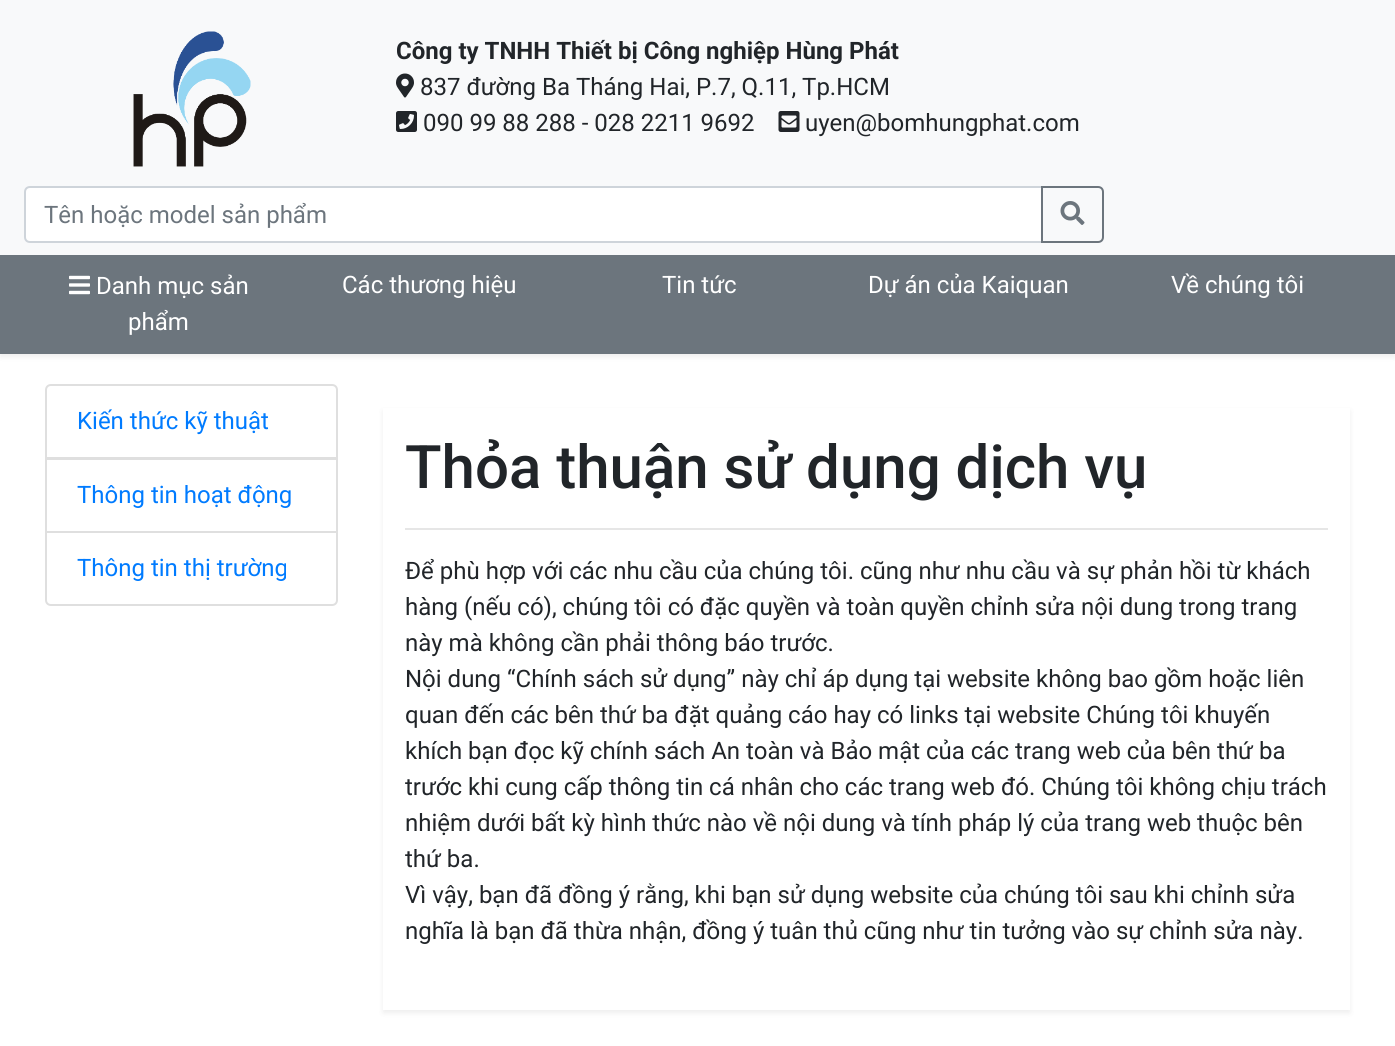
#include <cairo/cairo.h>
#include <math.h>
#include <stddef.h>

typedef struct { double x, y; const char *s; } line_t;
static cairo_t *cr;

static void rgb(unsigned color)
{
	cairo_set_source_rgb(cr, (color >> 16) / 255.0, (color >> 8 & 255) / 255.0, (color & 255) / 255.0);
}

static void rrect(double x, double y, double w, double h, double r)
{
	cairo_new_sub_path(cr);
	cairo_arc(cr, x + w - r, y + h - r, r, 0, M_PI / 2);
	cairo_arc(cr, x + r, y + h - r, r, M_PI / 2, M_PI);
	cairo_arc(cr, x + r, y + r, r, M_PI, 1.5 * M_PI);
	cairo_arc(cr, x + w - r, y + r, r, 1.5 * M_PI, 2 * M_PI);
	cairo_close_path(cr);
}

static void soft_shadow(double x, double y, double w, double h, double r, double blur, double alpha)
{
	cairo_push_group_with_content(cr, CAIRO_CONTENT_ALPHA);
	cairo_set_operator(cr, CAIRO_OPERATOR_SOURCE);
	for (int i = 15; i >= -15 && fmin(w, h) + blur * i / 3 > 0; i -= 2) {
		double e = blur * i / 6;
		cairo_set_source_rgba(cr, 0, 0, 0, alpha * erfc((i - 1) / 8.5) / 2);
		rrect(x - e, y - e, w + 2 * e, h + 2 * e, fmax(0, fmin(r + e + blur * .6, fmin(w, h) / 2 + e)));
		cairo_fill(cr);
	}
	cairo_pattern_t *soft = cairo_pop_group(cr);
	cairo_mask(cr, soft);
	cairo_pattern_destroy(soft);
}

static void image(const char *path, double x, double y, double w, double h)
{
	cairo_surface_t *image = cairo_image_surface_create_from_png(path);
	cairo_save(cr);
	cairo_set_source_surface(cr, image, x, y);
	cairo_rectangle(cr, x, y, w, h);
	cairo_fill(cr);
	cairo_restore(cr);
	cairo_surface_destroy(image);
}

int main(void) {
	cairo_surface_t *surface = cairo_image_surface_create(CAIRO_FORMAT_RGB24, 1395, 1046);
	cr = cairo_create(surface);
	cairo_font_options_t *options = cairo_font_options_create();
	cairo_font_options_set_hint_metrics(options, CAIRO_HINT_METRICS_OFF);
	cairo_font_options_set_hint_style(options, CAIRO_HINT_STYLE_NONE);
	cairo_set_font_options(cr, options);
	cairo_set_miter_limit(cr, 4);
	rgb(0xffffff);
	cairo_paint(cr);
	rgb(0x000000);
	soft_shadow(0, 258, 1395, 99, 0, 3, 0.07);
	rgb(0xf8f9fa);
	cairo_rectangle(cr, 0, 0, 1395, 255);
	cairo_fill(cr);
	image("img/1.png", 133, 31, 118, 136);
	image("img/2.png", 396, 73, 18, 25);
	image("img/3.png", 396, 111, 21, 21);
	image("img/4.png", 778, 111, 22, 21);
	rgb(0xffffff);
	cairo_new_path(cr);
	cairo_move_to(cr, 30, 187);
	cairo_line_to(cr, 1042, 187);
	cairo_line_to(cr, 1042, 242);
	cairo_line_to(cr, 30, 242);
	cairo_curve_to(cr, 27, 242, 25, 240, 25, 237);
	cairo_line_to(cr, 25, 192);
	cairo_curve_to(cr, 25, 189, 27, 187, 30, 187);
	cairo_close_path(cr);
	cairo_fill_preserve(cr);
	rgb(0xced4da);
	cairo_stroke(cr);
	cairo_new_path(cr);
	cairo_move_to(cr, 1042, 187);
	cairo_line_to(cr, 1098, 187);
	cairo_curve_to(cr, 1101, 187, 1103, 189, 1103, 192);
	cairo_line_to(cr, 1103, 237);
	cairo_curve_to(cr, 1103, 240, 1101, 242, 1098, 242);
	cairo_line_to(cr, 1042, 242);
	cairo_close_path(cr);
	rgb(0x6c757d);
	cairo_stroke(cr);
	image("img/5.png", 1060, 201, 25, 24);
	cairo_rectangle(cr, 0, 255, 1395, 99);
	cairo_fill(cr);
	image("img/6.png", 69, 275, 21, 20);
	cairo_new_path(cr);
	cairo_move_to(cr, 51, 385);
	cairo_line_to(cr, 332, 385);
	cairo_curve_to(cr, 335, 385, 337, 387, 337, 390);
	cairo_line_to(cr, 337, 458);
	cairo_line_to(cr, 46, 458);
	cairo_line_to(cr, 46, 390);
	cairo_curve_to(cr, 46, 387, 48, 385, 51, 385);
	cairo_close_path(cr);
	rgb(0xdfdfdf);
	cairo_stroke(cr);
	cairo_rectangle(cr, 46, 459, 291, 73);
	cairo_stroke(cr);
	rgb(0xffffff);
	cairo_new_path(cr);
	cairo_move_to(cr, 46, 532);
	cairo_line_to(cr, 337, 532);
	cairo_line_to(cr, 337, 600);
	cairo_curve_to(cr, 337, 603, 335, 605, 332, 605);
	cairo_line_to(cr, 51, 605);
	cairo_curve_to(cr, 48, 605, 46, 603, 46, 600);
	cairo_close_path(cr);
	cairo_fill_preserve(cr);
	rgb(0xdfdfdf);
	cairo_stroke(cr);
	cairo_save(cr);
	cairo_set_fill_rule(cr, CAIRO_FILL_RULE_EVEN_ODD);
	cairo_new_path(cr);
	cairo_move_to(cr, 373, 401);
	cairo_line_to(cr, 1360, 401);
	cairo_line_to(cr, 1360, 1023);
	cairo_line_to(cr, 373, 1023);
	cairo_close_path(cr);
	cairo_move_to(cr, 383, 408);
	cairo_line_to(cr, 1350, 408);
	cairo_line_to(cr, 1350, 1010);
	cairo_line_to(cr, 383, 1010);
	cairo_close_path(cr);
	cairo_clip(cr);
	rgb(0x000000);
	soft_shadow(383, 411, 967, 602, 0, 3, 0.07);
	cairo_restore(cr);
	rgb(0xe6e6e6);
	cairo_rectangle(cr, 405, 528, 923, 2);
	cairo_fill(cr);
	cairo_select_font_face(cr, "Roboto", CAIRO_FONT_SLANT_NORMAL, CAIRO_FONT_WEIGHT_BOLD);
	cairo_set_font_size(cr, 24);
	rgb(0x212529);
	cairo_move_to(cr, 396, 59);
	cairo_show_text(cr, "Công ty TNHH Thiết bị Công nghiệp Hùng Phát");
	cairo_select_font_face(cr, "Roboto", CAIRO_FONT_SLANT_NORMAL, CAIRO_FONT_WEIGHT_NORMAL);
	{
		static const line_t items[] = {
			{420, 95, "837 đường Ba Tháng Hai, P.7, Q.11, Tp.HCM"},
			{423, 131, "090 99 88 288 - 028 2211 9692"},
			{805, 131, "uyen@bomhungphat.com"},
		};
		for (size_t i = 0; i < sizeof items / sizeof *items; i++) {
			cairo_move_to(cr, items[i].x, items[i].y);
			cairo_show_text(cr, items[i].s);
		}
	}
	rgb(0x6c757d);
	cairo_move_to(cr, 44, 223);
	cairo_show_text(cr, "Tên hoặc model sản phẩm");
	rgb(0xffffff);
	{
		static const line_t items[] = {
			{96, 294, "Danh mục sản"},
			{128, 330, "phẩm"},
			{342, 293, "Các thương hiệu"},
			{662, 293, "Tin tức"},
			{868, 293, "Dự án của Kaiquan"},
			{1171, 293, "Về chúng tôi"},
		};
		for (size_t i = 0; i < sizeof items / sizeof *items; i++) {
			cairo_move_to(cr, items[i].x, items[i].y);
			cairo_show_text(cr, items[i].s);
		}
	}
	rgb(0x007bff);
	{
		static const line_t items[] = {
			{77, 429, "Kiến thức kỹ thuật"},
			{77, 503, "Thông tin hoạt động"},
			{77, 576, "Thông tin thị trường"},
		};
		for (size_t i = 0; i < sizeof items / sizeof *items; i++) {
			cairo_move_to(cr, items[i].x, items[i].y);
			cairo_show_text(cr, items[i].s);
		}
	}
	cairo_select_font_face(cr, "Roboto Medium", CAIRO_FONT_SLANT_NORMAL, CAIRO_FONT_WEIGHT_NORMAL);
	cairo_set_font_size(cr, 60);
	rgb(0x212529);
	cairo_move_to(cr, 405, 488);
	cairo_show_text(cr, "Thỏa thuận sử dụng dịch vụ");
	cairo_select_font_face(cr, "Roboto", CAIRO_FONT_SLANT_NORMAL, CAIRO_FONT_WEIGHT_NORMAL);
	cairo_set_font_size(cr, 24);
	{
		static const line_t items[] = {
			{405, 579, "Để phù hợp với các nhu cầu của chúng tôi. cũng như nhu cầu và sự phản hồi từ khách"},
			{405, 615, "hàng (nếu có), chúng tôi có đặc quyền và toàn quyền chỉnh sửa nội dung trong trang"},
			{405, 651, "này mà không cần phải thông báo trước."},
			{405, 687, "Nội dung “Chính sách sử dụng” này chỉ áp dụng tại website không bao gồm hoặc liên"},
			{405, 723, "quan đến các bên thứ ba đặt quảng cáo hay có links tại website Chúng tôi khuyến"},
			{405, 759, "khích bạn đọc kỹ chính sách An toàn và Bảo mật của các trang web của bên thứ ba"},
			{405, 795, "trước khi cung cấp thông tin cá nhân cho các trang web đó. Chúng tôi không chịu trách"},
			{405, 831, "nhiệm dưới bất kỳ hình thức nào về nội dung và tính pháp lý của trang web thuộc bên"},
			{405, 867, "thứ ba."},
			{405, 903, "Vì vậy, bạn đã đồng ý rằng, khi bạn sử dụng website của chúng tôi sau khi chỉnh sửa"},
			{405, 939, "nghĩa là bạn đã thừa nhận, đồng ý tuân thủ cũng như tin tưởng vào sự chỉnh sửa này."},
		};
		for (size_t i = 0; i < sizeof items / sizeof *items; i++) {
			cairo_move_to(cr, items[i].x, items[i].y);
			cairo_show_text(cr, items[i].s);
		}
	}
	cairo_surface_write_to_png(surface, "page.png");
	cairo_font_options_destroy(options);
	cairo_destroy(cr);
	cairo_surface_destroy(surface);
	return 0;
}
